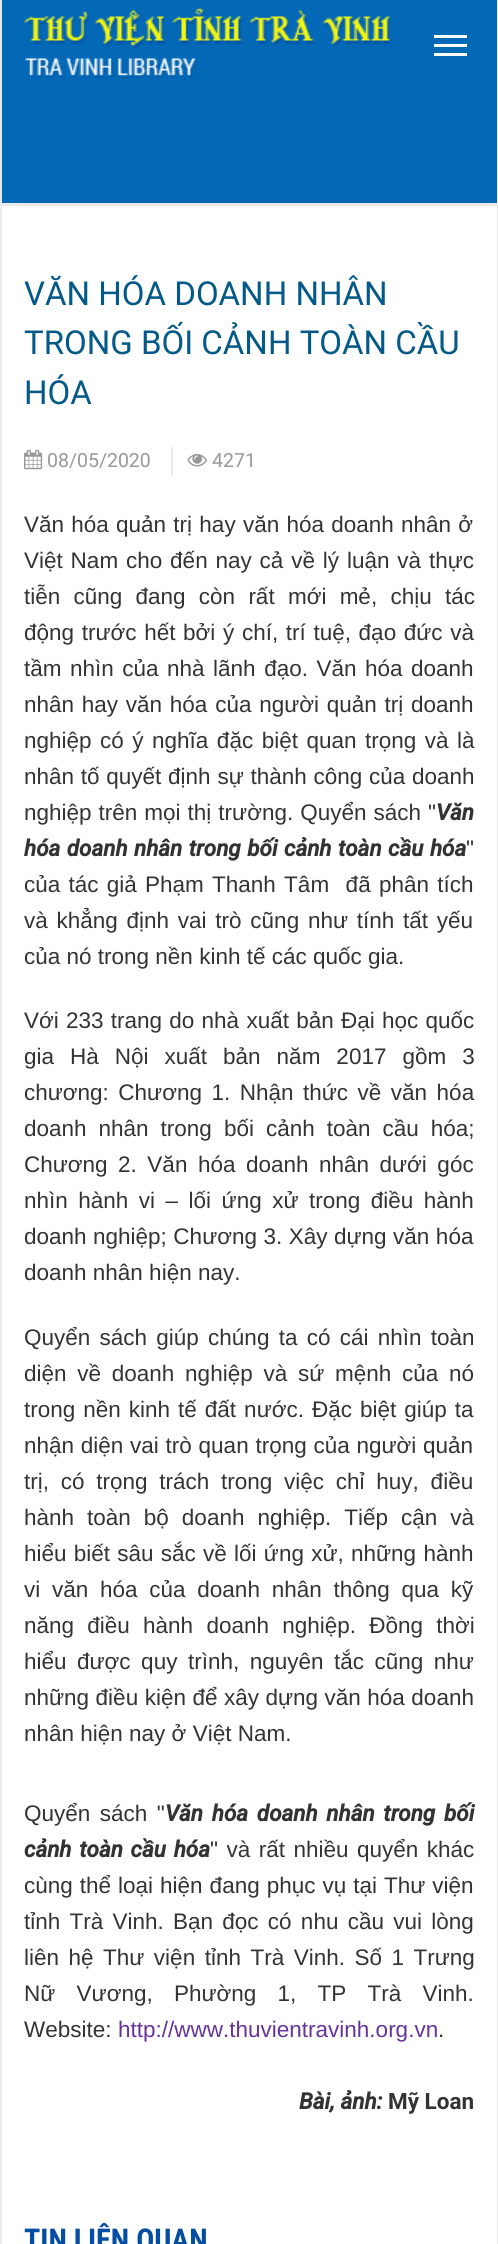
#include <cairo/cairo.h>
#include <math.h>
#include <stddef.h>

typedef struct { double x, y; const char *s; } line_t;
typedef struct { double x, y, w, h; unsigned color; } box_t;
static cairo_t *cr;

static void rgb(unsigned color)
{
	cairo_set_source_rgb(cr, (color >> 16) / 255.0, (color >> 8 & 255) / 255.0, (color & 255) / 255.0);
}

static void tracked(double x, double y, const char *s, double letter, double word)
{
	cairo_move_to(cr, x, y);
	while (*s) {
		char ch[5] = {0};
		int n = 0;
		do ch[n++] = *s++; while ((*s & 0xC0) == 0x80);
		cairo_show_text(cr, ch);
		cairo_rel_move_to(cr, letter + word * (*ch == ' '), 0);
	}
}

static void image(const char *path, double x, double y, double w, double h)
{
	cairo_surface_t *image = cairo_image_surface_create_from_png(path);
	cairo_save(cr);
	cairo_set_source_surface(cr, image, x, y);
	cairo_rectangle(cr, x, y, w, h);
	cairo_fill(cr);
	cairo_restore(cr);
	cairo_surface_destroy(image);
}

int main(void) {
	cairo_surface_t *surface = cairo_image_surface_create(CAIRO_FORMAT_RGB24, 498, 2244);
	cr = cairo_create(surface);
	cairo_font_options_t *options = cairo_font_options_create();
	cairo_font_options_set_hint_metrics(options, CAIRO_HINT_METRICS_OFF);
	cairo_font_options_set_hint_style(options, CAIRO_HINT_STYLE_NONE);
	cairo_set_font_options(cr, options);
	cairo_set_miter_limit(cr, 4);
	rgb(0xffffff);
	cairo_paint(cr);
	{
		static const box_t items[] = {
			{497, 0, 1, 2244, 0xeaeaea},
			{0, 0, 2, 2244, 0xeaeaea},
			{2, 0, 495, 203, 0x0369b7},
		};
		for (size_t i = 0; i < sizeof items / sizeof *items; i++) {
			rgb(items[i].color);
			cairo_rectangle(cr, items[i].x, items[i].y, items[i].w, items[i].h);
			cairo_fill(cr);
		}
	}
	image("img/1.png", 24, 8, 368, 71);
	{
		static const box_t items[] = {
			{434, 44, 33, 3, 0xffffff},
			{434, 35, 33, 3, 0xffffff},
			{434, 53, 33, 3, 0xffffff},
			{2, 203, 495, 3, 0xeaeaea},
		};
		for (size_t i = 0; i < sizeof items / sizeof *items; i++) {
			rgb(items[i].color);
			cairo_rectangle(cr, items[i].x, items[i].y, items[i].w, items[i].h);
			cairo_fill(cr);
		}
	}
	image("img/2.png", 24, 449, 19, 21);
	rgb(0xecebeb);
	cairo_rectangle(cr, 171, 447, 2, 29);
	cairo_fill(cr);
	image("img/3.png", 187, 454, 20, 13);
	cairo_select_font_face(cr, "Roboto", CAIRO_FONT_SLANT_NORMAL, CAIRO_FONT_WEIGHT_NORMAL);
	cairo_set_font_size(cr, 33);
	rgb(0x035988);
	{
		static const line_t items[] = {
			{24, 305, "VĂN HÓA DOANH NHÂN"},
			{24, 354, "TRONG BỐI CẢNH TOÀN CẦU"},
			{24, 404, "HÓA"},
		};
		for (size_t i = 0; i < sizeof items / sizeof *items; i++) {
			cairo_move_to(cr, items[i].x, items[i].y);
			cairo_show_text(cr, items[i].s);
		}
	}
	cairo_set_font_size(cr, 19.5);
	rgb(0x989898);
	cairo_move_to(cr, 47, 467);
	cairo_show_text(cr, "08/05/2020");
	cairo_move_to(cr, 212, 467);
	cairo_show_text(cr, "4271");
	cairo_select_font_face(cr, "Liberation Sans", CAIRO_FONT_SLANT_NORMAL, CAIRO_FONT_WEIGHT_NORMAL);
	cairo_set_font_size(cr, 22.5);
	rgb(0x333333);
	tracked(24, 532, "Văn hóa quản trị hay văn hóa doanh nhân ở", 0, 1);
	tracked(24, 568, "Việt Nam cho đến nay cả về lý luận và thực", 0, 1.6);
	tracked(24, 604, "tiễn cũng đang còn rất mới mẻ, chịu tác", 0, 7);
	tracked(24, 640, "động trước hết bởi ý chí, trí tuệ, đạo đức và", 0, 1.4);
	tracked(24, 676, "tầm nhìn của nhà lãnh đạo. Văn hóa doanh", 0, 2.25);
	tracked(24, 712, "nhân hay văn hóa của người quản trị doanh", 0, 1.5);
	tracked(24, 748, "nghiệp có ý nghĩa đặc biệt quan trọng và là", 0, 2.25);
	tracked(24, 784, "nhân tố quyết định sự thành công của doanh", 0, 0.5);
	tracked(24, 820, "nghiệp trên mọi thị trường. Quyển sách \"", 0, 0.75);
	cairo_select_font_face(cr, "Roboto", CAIRO_FONT_SLANT_ITALIC, CAIRO_FONT_WEIGHT_BOLD);
	cairo_move_to(cr, 436, 820);
	cairo_show_text(cr, "Văn");
	tracked(24, 856, "hóa doanh nhân trong bối cảnh toàn cầu hóa", 0, 1);
	cairo_select_font_face(cr, "Liberation Sans", CAIRO_FONT_SLANT_NORMAL, CAIRO_FONT_WEIGHT_NORMAL);
	cairo_move_to(cr, 466, 856);
	cairo_show_text(cr, "\"");
	tracked(24, 892, "của tác giả Phạm Thanh Tâm  đã phân tích", 0, 2);
	tracked(24, 928, "và khẳng định vai trò cũng như tính tất yếu", 0, 2.5);
	cairo_move_to(cr, 24, 964);
	cairo_show_text(cr, "của nó trong nền kinh tế các quốc gia.");
	tracked(24, 1028, "Với 233 trang do nhà xuất bản Đại học quốc", 0, 1);
	tracked(24, 1064, "gia Hà Nội xuất bản năm 2017 gồm 3", 0, 9.75);
	tracked(24, 1100, "chương: Chương 1. Nhận thức về văn hóa", 0, 3.25);
	tracked(24, 1136, "doanh nhân trong bối cảnh toàn cầu hóa;", 0, 5.75);
	tracked(24, 1172, "Chương 2. Văn hóa doanh nhân dưới góc", 0, 4.25);
	tracked(24, 1208, "nhìn hành vi – lối ứng xử trong điều hành", 0, 4.25);
	tracked(24, 1244, "doanh nghiệp; Chương 3. Xây dựng văn hóa", 0, 0.25);
	cairo_move_to(cr, 24, 1280);
	cairo_show_text(cr, "doanh nhân hiện nay.");
	tracked(24, 1345, "Quyển sách giúp chúng ta có cái nhìn toàn", 0, 3);
	tracked(24, 1381, "diện về doanh nghiệp và sứ mệnh của nó", 0, 4.5);
	tracked(24, 1417, "trong nền kinh tế đất nước. Đặc biệt giúp ta", 0, 1.75);
	tracked(24, 1453, "nhận diện vai trò quan trọng của người quản", 0, 0.5);
	tracked(24, 1489, "trị, có trọng trách trong việc chỉ huy, điều", 0, 5.5);
	tracked(24, 1525, "hành toàn bộ doanh nghiệp. Tiếp cận và", 0, 6.75);
	tracked(24, 1561, "hiểu biết sâu sắc về lối ứng xử, những hành", 0, 1);
	tracked(24, 1597, "vi văn hóa của doanh nhân thông qua kỹ", 0, 5.5);
	tracked(24, 1633, "năng điều hành doanh nghiệp. Đồng thời", 0, 7);
	tracked(24, 1669, "hiểu được quy trình, nguyên tắc cũng như", 0, 4.25);
	tracked(24, 1705, "những điều kiện để xây dựng văn hóa doanh", 0, 0.25);
	cairo_move_to(cr, 24, 1741);
	cairo_show_text(cr, "nhân hiện nay ở Việt Nam.");
	tracked(24, 1821, "Quyển sách \"", 0, 3.25);
	cairo_select_font_face(cr, "Roboto", CAIRO_FONT_SLANT_ITALIC, CAIRO_FONT_WEIGHT_BOLD);
	tracked(165, 1821, "Văn hóa doanh nhân trong bối", 0, 3.25);
	tracked(24, 1857, "cảnh toàn cầu hóa", 0, 2.25);
	cairo_select_font_face(cr, "Liberation Sans", CAIRO_FONT_SLANT_NORMAL, CAIRO_FONT_WEIGHT_NORMAL);
	tracked(210, 1857, "\" và rất nhiều quyển khác", 0, 2.25);
	tracked(24, 1893, "cùng thể loại hiện đang phục vụ tại Thư viện", 0, 0.75);
	tracked(24, 1929, "tỉnh Trà Vinh. Bạn đọc có nhu cầu vui lòng", 0, 3);
	tracked(24, 1965, "liên hệ Thư viện tỉnh Trà Vinh. Số 1 Trưng", 0, 3.25);
	tracked(24, 2001, "Nữ Vương, Phường 1, TP Trà Vinh.", 0, 15);
	cairo_move_to(cr, 24, 2037);
	cairo_show_text(cr, "Website:");
	rgb(0x663399);
	cairo_move_to(cr, 118, 2037);
	cairo_show_text(cr, "http://www.thuvientravinh.org.vn");
	rgb(0x333333);
	cairo_move_to(cr, 438, 2037);
	cairo_show_text(cr, ".");
	cairo_select_font_face(cr, "Roboto", CAIRO_FONT_SLANT_ITALIC, CAIRO_FONT_WEIGHT_BOLD);
	cairo_move_to(cr, 299, 2109);
	cairo_show_text(cr, "Bài, ảnh:");
	cairo_select_font_face(cr, "Roboto", CAIRO_FONT_SLANT_NORMAL, CAIRO_FONT_WEIGHT_BOLD);
	cairo_move_to(cr, 388, 2109);
	cairo_show_text(cr, "Mỹ Loan");
	cairo_select_font_face(cr, "Roboto Condensed", CAIRO_FONT_SLANT_NORMAL, CAIRO_FONT_WEIGHT_BOLD);
	cairo_set_font_size(cr, 30);
	rgb(0x034da2);
	cairo_move_to(cr, 24, 2250);
	cairo_show_text(cr, "TIN LIÊN QUAN");
	cairo_surface_write_to_png(surface, "page.png");
	cairo_font_options_destroy(options);
	cairo_destroy(cr);
	cairo_surface_destroy(surface);
	return 0;
}
